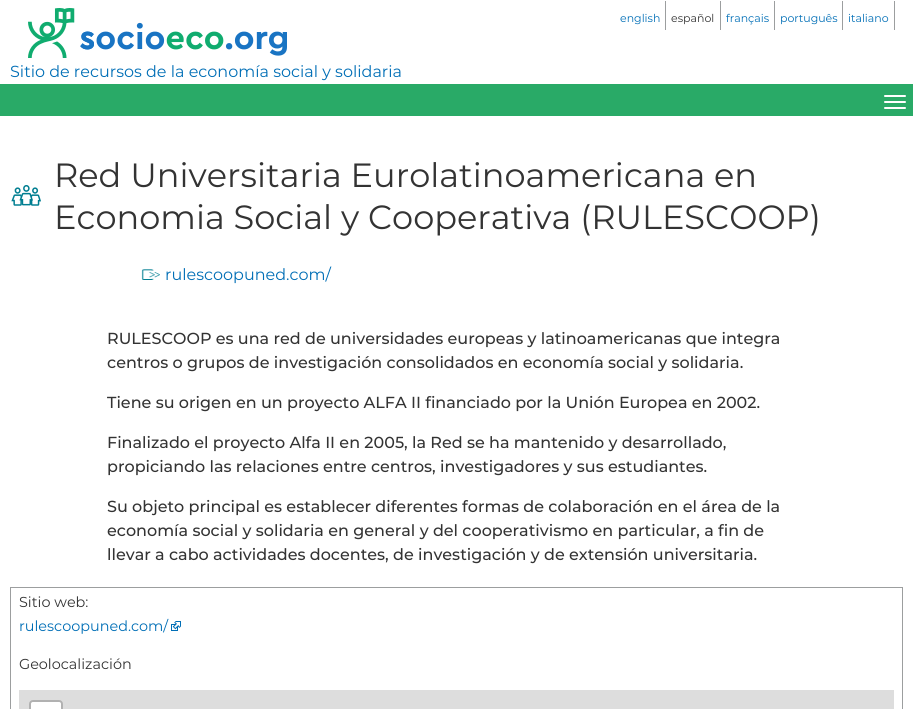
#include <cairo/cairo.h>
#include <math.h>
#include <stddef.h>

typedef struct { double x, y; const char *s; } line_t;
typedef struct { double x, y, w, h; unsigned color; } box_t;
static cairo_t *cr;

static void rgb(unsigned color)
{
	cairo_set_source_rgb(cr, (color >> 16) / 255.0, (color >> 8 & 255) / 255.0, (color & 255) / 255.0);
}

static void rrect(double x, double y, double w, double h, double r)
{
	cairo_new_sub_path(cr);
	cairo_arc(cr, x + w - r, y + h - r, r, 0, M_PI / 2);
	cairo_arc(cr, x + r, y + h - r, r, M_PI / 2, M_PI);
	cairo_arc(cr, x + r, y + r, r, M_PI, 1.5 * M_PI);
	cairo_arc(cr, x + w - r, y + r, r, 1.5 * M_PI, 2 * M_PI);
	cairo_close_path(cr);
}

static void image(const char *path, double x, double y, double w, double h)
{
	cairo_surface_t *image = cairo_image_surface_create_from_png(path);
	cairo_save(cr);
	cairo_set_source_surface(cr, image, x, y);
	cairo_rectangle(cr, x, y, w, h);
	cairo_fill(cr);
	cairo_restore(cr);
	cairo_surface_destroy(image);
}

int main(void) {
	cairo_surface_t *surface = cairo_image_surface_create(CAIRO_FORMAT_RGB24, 913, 709);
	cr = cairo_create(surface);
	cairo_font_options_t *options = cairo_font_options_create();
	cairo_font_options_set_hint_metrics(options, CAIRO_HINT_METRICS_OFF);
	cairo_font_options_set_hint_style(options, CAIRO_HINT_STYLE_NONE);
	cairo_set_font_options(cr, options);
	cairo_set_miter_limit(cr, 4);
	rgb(0xffffff);
	cairo_paint(cr);
	{
		static const box_t items[] = {
			{665, 1, 1, 29, 0x9c9e9f},
			{720, 1, 1, 29, 0x9c9e9f},
			{774, 1, 1, 29, 0x9c9e9f},
			{842, 1, 1, 29, 0x9c9e9f},
			{894, 1, 1, 29, 0x9c9e9f},
		};
		for (size_t i = 0; i < sizeof items / sizeof *items; i++) {
			rgb(items[i].color);
			cairo_rectangle(cr, items[i].x, items[i].y, items[i].w, items[i].h);
			cairo_fill(cr);
		}
	}
	image("img/1.png", 28, 8, 259, 50);
	rgb(0x29aa67);
	cairo_rectangle(cr, 0, 84, 913, 32);
	cairo_fill(cr);
	rgb(0xffffff);
	rrect(884, 95, 22, 2, 1);
	cairo_fill(cr);
	rrect(884, 101, 22, 2, 1);
	cairo_fill(cr);
	rrect(884, 107, 22, 2, 1);
	cairo_fill(cr);
	image("img/2.png", 11, 185, 30, 21);
	image("img/3.png", 141, 269, 19, 11);
	cairo_rectangle(cr, 10.5, 587.5, 892, 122);
	rgb(0x9c9e9f);
	cairo_set_line_width(cr, 1);
	cairo_stroke(cr);
	image("img/4.png", 171, 621, 10, 10);
	rgb(0xdddddd);
	cairo_rectangle(cr, 19, 690, 875, 19);
	cairo_fill(cr);
	rrect(30, 701, 32, 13, 3);
	rgb(0xb1b1b1);
	cairo_set_line_width(cr, 2);
	cairo_stroke(cr);
	rgb(0xffffff);
	cairo_new_path(cr);
	cairo_move_to(cr, 33, 702);
	cairo_line_to(cr, 59, 702);
	cairo_curve_to(cr, 60, 702, 61, 703, 61, 704);
	cairo_line_to(cr, 61, 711);
	cairo_line_to(cr, 31, 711);
	cairo_line_to(cr, 31, 704);
	cairo_curve_to(cr, 31, 703, 32, 702, 33, 702);
	cairo_close_path(cr);
	cairo_fill(cr);
	cairo_select_font_face(cr, "Montserrat", CAIRO_FONT_SLANT_NORMAL, CAIRO_FONT_WEIGHT_NORMAL);
	cairo_set_font_size(cr, 11);
	rgb(0x006eb6);
	cairo_move_to(cr, 620, 22);
	cairo_show_text(cr, "english");
	rgb(0x333333);
	cairo_move_to(cr, 671, 22);
	cairo_show_text(cr, "español");
	rgb(0x006eb6);
	{
		static const line_t items[] = {
			{726, 22, "français"},
			{780, 22, "português"},
			{848, 22, "italiano"},
		};
		for (size_t i = 0; i < sizeof items / sizeof *items; i++) {
			cairo_move_to(cr, items[i].x, items[i].y);
			cairo_show_text(cr, items[i].s);
		}
	}
	cairo_set_font_size(cr, 16);
	cairo_move_to(cr, 10, 77);
	cairo_show_text(cr, "Sitio de recursos de la economía social y solidaria");
	cairo_set_font_size(cr, 33.6);
	rgb(0x333333);
	cairo_move_to(cr, 54, 187);
	cairo_show_text(cr, "Red Universitaria Eurolatinoamericana en");
	cairo_move_to(cr, 54, 229);
	cairo_show_text(cr, "Economia Social y Cooperativa (RULESCOOP)");
	cairo_set_font_size(cr, 16);
	rgb(0x006eb6);
	cairo_move_to(cr, 165, 280);
	cairo_show_text(cr, "rulescoopuned.com/");
	cairo_select_font_face(cr, "Montserrat Medium", CAIRO_FONT_SLANT_NORMAL, CAIRO_FONT_WEIGHT_NORMAL);
	rgb(0x333333);
	{
		static const line_t items[] = {
			{107, 344, "RULESCOOP es una red de universidades europeas y latinoamericanas que integra"},
			{107, 368, "centros o grupos de investigación consolidados en economía social y solidaria."},
			{107, 408, "Tiene su origen en un proyecto ALFA II financiado por la Unión Europea en 2002."},
			{107, 448, "Finalizado el proyecto Alfa II en 2005, la Red se ha mantenido y desarrollado,"},
			{107, 472, "propiciando las relaciones entre centros, investigadores y sus estudiantes."},
			{107, 512, "Su objeto principal es establecer diferentes formas de colaboración en el área de la"},
			{107, 536, "economía social y solidaria en general y del cooperativismo en particular, a fin de"},
			{107, 560, "llevar a cabo actividades docentes, de investigación y de extensión universitaria."},
		};
		for (size_t i = 0; i < sizeof items / sizeof *items; i++) {
			cairo_move_to(cr, items[i].x, items[i].y);
			cairo_show_text(cr, items[i].s);
		}
	}
	cairo_select_font_face(cr, "Montserrat", CAIRO_FONT_SLANT_NORMAL, CAIRO_FONT_WEIGHT_NORMAL);
	cairo_set_font_size(cr, 14.4);
	cairo_move_to(cr, 19, 607);
	cairo_show_text(cr, "Sitio web:");
	rgb(0x006eb6);
	cairo_move_to(cr, 19, 631);
	cairo_show_text(cr, "rulescoopuned.com/");
	rgb(0x333333);
	cairo_move_to(cr, 19, 669);
	cairo_show_text(cr, "Geolocalización");
	cairo_surface_write_to_png(surface, "page.png");
	cairo_font_options_destroy(options);
	cairo_destroy(cr);
	cairo_surface_destroy(surface);
	return 0;
}
